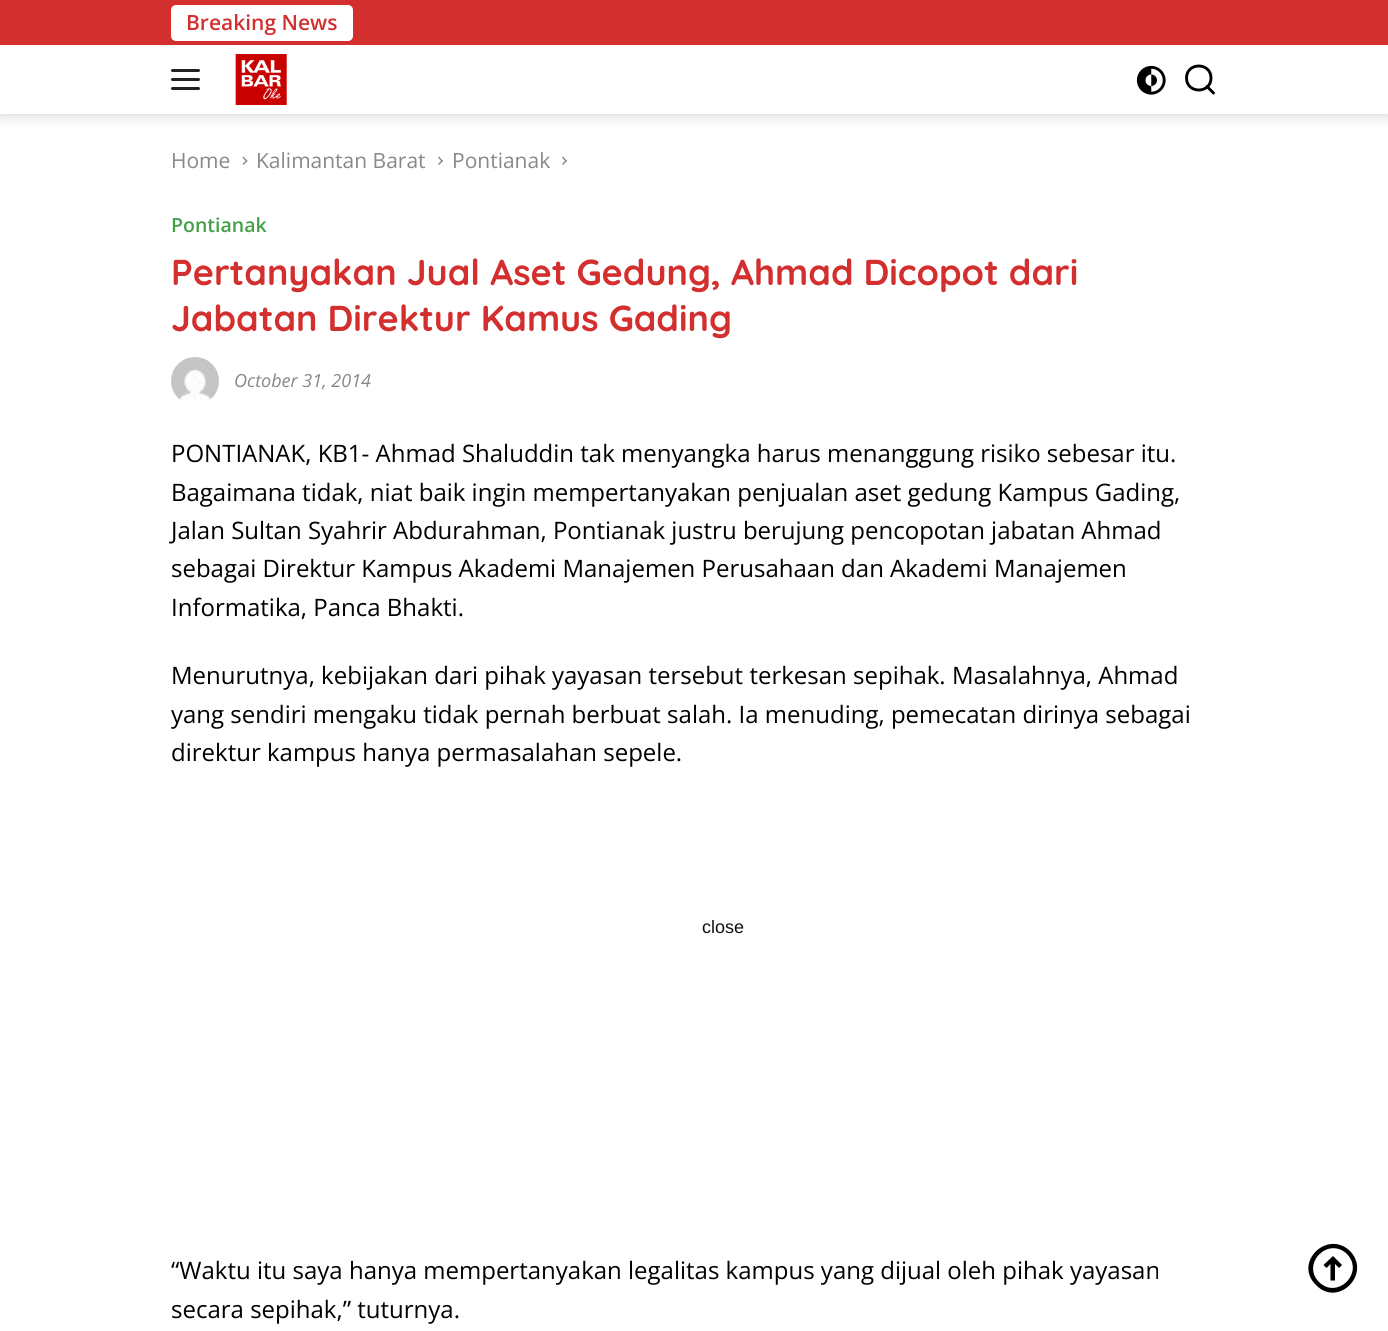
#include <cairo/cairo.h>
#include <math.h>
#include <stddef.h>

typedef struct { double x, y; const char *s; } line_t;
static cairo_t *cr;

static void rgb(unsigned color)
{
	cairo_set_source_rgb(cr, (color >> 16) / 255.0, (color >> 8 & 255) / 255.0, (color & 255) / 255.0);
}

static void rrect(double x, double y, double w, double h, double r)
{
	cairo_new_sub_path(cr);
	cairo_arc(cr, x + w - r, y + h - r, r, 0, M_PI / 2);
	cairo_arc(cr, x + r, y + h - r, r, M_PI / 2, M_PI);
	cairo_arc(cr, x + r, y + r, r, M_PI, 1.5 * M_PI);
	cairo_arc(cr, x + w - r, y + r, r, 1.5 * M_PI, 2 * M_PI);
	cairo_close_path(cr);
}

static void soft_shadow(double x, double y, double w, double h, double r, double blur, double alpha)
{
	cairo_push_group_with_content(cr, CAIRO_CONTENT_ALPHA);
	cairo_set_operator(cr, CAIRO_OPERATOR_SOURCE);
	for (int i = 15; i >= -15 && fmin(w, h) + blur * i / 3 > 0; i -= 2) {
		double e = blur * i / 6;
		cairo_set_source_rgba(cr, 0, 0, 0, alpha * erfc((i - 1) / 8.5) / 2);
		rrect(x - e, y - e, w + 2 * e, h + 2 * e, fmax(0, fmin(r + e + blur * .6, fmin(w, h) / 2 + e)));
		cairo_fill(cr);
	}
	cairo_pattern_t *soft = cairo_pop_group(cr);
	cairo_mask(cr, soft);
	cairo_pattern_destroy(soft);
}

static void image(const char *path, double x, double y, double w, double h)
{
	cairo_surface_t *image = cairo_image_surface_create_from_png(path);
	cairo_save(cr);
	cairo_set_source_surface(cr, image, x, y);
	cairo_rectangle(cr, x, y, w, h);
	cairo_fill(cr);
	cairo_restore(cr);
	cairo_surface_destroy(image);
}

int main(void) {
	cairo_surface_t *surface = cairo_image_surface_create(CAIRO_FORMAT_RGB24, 1388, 1331);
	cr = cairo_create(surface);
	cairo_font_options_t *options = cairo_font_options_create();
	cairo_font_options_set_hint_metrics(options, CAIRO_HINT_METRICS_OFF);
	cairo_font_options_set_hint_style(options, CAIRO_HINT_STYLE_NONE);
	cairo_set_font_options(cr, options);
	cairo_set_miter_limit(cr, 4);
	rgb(0xffffff);
	cairo_paint(cr);
	rgb(0x000000);
	soft_shadow(0, 0, 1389, 114, 0, 7.5, 0.2);
	rgb(0xffffff);
	cairo_rectangle(cr, 0, 45, 1388, 69);
	cairo_fill(cr);
	rgb(0xd32f2f);
	cairo_rectangle(cr, 0, 0, 1388, 45);
	cairo_fill(cr);
	rgb(0xffffff);
	rrect(171, 5, 182, 36, 5);
	cairo_fill(cr);
	rgb(0x222222);
	rrect(171, 69, 29, 3, 1.5);
	cairo_fill(cr);
	rrect(171, 78, 29, 3, 1.5);
	cairo_fill(cr);
	rrect(171, 87, 29, 3, 1.5);
	cairo_fill(cr);
	image("img/1.png", 235, 54, 52, 51);
	image("img/2.png", 1136, 65, 30, 30);
	cairo_new_path(cr);
	cairo_move_to(cr, 1213.5, 93);
	cairo_line_to(cr, 1207, 86.5);
	cairo_move_to(cr, 1211, 78);
	cairo_curve_to(cr, 1211, 94, 1186.5, 94, 1186.5, 78);
	cairo_curve_to(cr, 1186.5, 62, 1211, 62, 1211, 78);
	cairo_close_path(cr);
	rgb(0x000000);
	cairo_set_line_width(cr, 2.9);
	cairo_set_line_cap(cr, CAIRO_LINE_CAP_ROUND);
	cairo_stroke(cr);
	rgb(0x888888);
	cairo_new_path(cr);
	cairo_move_to(cr, 242.5, 157.5);
	cairo_line_to(cr, 243.5, 156.5);
	cairo_line_to(cr, 247.5, 161);
	cairo_line_to(cr, 246.5, 162);
	cairo_close_path(cr);
	cairo_fill(cr);
	cairo_new_path(cr);
	cairo_move_to(cr, 242.5, 164);
	cairo_line_to(cr, 246.5, 160);
	cairo_line_to(cr, 247.5, 161);
	cairo_line_to(cr, 243.5, 165);
	cairo_close_path(cr);
	cairo_fill(cr);
	cairo_new_path(cr);
	cairo_move_to(cr, 438, 157.5);
	cairo_line_to(cr, 439, 156.5);
	cairo_line_to(cr, 443, 161);
	cairo_line_to(cr, 442, 162);
	cairo_close_path(cr);
	cairo_fill(cr);
	cairo_new_path(cr);
	cairo_move_to(cr, 438, 164);
	cairo_line_to(cr, 442, 160);
	cairo_line_to(cr, 443, 161);
	cairo_line_to(cr, 439, 165);
	cairo_close_path(cr);
	cairo_fill(cr);
	cairo_new_path(cr);
	cairo_move_to(cr, 562, 157.5);
	cairo_line_to(cr, 563, 156.5);
	cairo_line_to(cr, 567, 161);
	cairo_line_to(cr, 566, 162);
	cairo_close_path(cr);
	cairo_fill(cr);
	cairo_new_path(cr);
	cairo_move_to(cr, 562, 164);
	cairo_line_to(cr, 566, 160);
	cairo_line_to(cr, 567, 161);
	cairo_line_to(cr, 563, 165);
	cairo_close_path(cr);
	cairo_fill(cr);
	image("img/3.png", 171, 357, 48, 44);
	rgb(0x000000);
	cairo_new_path(cr);
	cairo_move_to(cr, 1339, 1268);
	cairo_line_to(cr, 1342, 1265);
	cairo_line_to(cr, 1333, 1256);
	cairo_line_to(cr, 1323.5, 1265);
	cairo_line_to(cr, 1326.5, 1268);
	cairo_line_to(cr, 1330.5, 1264);
	cairo_line_to(cr, 1330.5, 1280.5);
	cairo_line_to(cr, 1335, 1280.5);
	cairo_line_to(cr, 1335, 1264);
	cairo_close_path(cr);
	cairo_fill(cr);
	cairo_set_fill_rule(cr, CAIRO_FILL_RULE_EVEN_ODD);
	cairo_new_path(cr);
	cairo_move_to(cr, 1350, 1251);
	cairo_curve_to(cr, 1327, 1229, 1293, 1263, 1316, 1285);
	cairo_curve_to(cr, 1338, 1308, 1372, 1274, 1350, 1251);
	cairo_close_path(cr);
	cairo_move_to(cr, 1347, 1254);
	cairo_curve_to(cr, 1328, 1236, 1301, 1264, 1319, 1282);
	cairo_curve_to(cr, 1337, 1300, 1365, 1273, 1347, 1254);
	cairo_close_path(cr);
	cairo_fill(cr);
	cairo_select_font_face(cr, "Open Sans SemiBold", CAIRO_FONT_SLANT_NORMAL, CAIRO_FONT_WEIGHT_NORMAL);
	cairo_set_font_size(cr, 21);
	rgb(0xd32f2f);
	cairo_move_to(cr, 186, 30);
	cairo_show_text(cr, "Breaking News");
	cairo_select_font_face(cr, "Open Sans", CAIRO_FONT_SLANT_NORMAL, CAIRO_FONT_WEIGHT_NORMAL);
	rgb(0x888888);
	{
		static const line_t items[] = {
			{171, 168, "Home"},
			{256, 168, "Kalimantan Barat"},
			{452, 168, "Pontianak"},
		};
		for (size_t i = 0; i < sizeof items / sizeof *items; i++) {
			cairo_move_to(cr, items[i].x, items[i].y);
			cairo_show_text(cr, items[i].s);
		}
	}
	cairo_select_font_face(cr, "Open Sans SemiBold", CAIRO_FONT_SLANT_NORMAL, CAIRO_FONT_WEIGHT_NORMAL);
	cairo_set_font_size(cr, 19.5);
	rgb(0x43a047);
	cairo_move_to(cr, 171, 232);
	cairo_show_text(cr, "Pontianak");
	cairo_select_font_face(cr, "Quicksand", CAIRO_FONT_SLANT_NORMAL, CAIRO_FONT_WEIGHT_BOLD);
	cairo_set_font_size(cr, 36);
	rgb(0xd32f2f);
	cairo_move_to(cr, 171, 285);
	cairo_show_text(cr, "Pertanyakan Jual Aset Gedung, Ahmad Dicopot dari");
	cairo_move_to(cr, 171, 331);
	cairo_show_text(cr, "Jabatan Direktur Kamus Gading");
	cairo_select_font_face(cr, "Open Sans", CAIRO_FONT_SLANT_ITALIC, CAIRO_FONT_WEIGHT_NORMAL);
	cairo_set_font_size(cr, 18);
	rgb(0x888888);
	cairo_move_to(cr, 234, 387);
	cairo_show_text(cr, "October 31, 2014");
	cairo_select_font_face(cr, "Open Sans", CAIRO_FONT_SLANT_NORMAL, CAIRO_FONT_WEIGHT_NORMAL);
	cairo_set_font_size(cr, 24);
	rgb(0x000000);
	{
		static const line_t items[] = {
			{171, 462, "PONTIANAK, KB1- Ahmad Shaluddin tak menyangka harus menanggung risiko sebesar itu."},
			{171, 501, "Bagaimana tidak, niat baik ingin mempertanyakan penjualan aset gedung Kampus Gading,"},
			{171, 539, "Jalan Sultan Syahrir Abdurahman, Pontianak justru berujung pencopotan jabatan Ahmad"},
			{171, 577, "sebagai Direktur Kampus Akademi Manajemen Perusahaan dan Akademi Manajemen"},
			{171, 616, "Informatika, Panca Bhakti."},
			{171, 684, "Menurutnya, kebijakan dari pihak yayasan tersebut terkesan sepihak. Masalahnya, Ahmad"},
			{171, 723, "yang sendiri mengaku tidak pernah berbuat salah. Ia menuding, pemecatan dirinya sebagai"},
			{171, 761, "direktur kampus hanya permasalahan sepele."},
			{171, 1279, "“Waktu itu saya hanya mempertanyakan legalitas kampus yang dijual oleh pihak yayasan"},
			{171, 1318, "secara sepihak,” tuturnya."},
		};
		for (size_t i = 0; i < sizeof items / sizeof *items; i++) {
			cairo_move_to(cr, items[i].x, items[i].y);
			cairo_show_text(cr, items[i].s);
		}
	}
	cairo_select_font_face(cr, "Liberation Sans", CAIRO_FONT_SLANT_NORMAL, CAIRO_FONT_WEIGHT_NORMAL);
	cairo_set_font_size(cr, 18);
	rgb(0x111111);
	cairo_move_to(cr, 702, 933);
	cairo_show_text(cr, "close");
	cairo_surface_write_to_png(surface, "page.png");
	cairo_font_options_destroy(options);
	cairo_destroy(cr);
	cairo_surface_destroy(surface);
	return 0;
}
